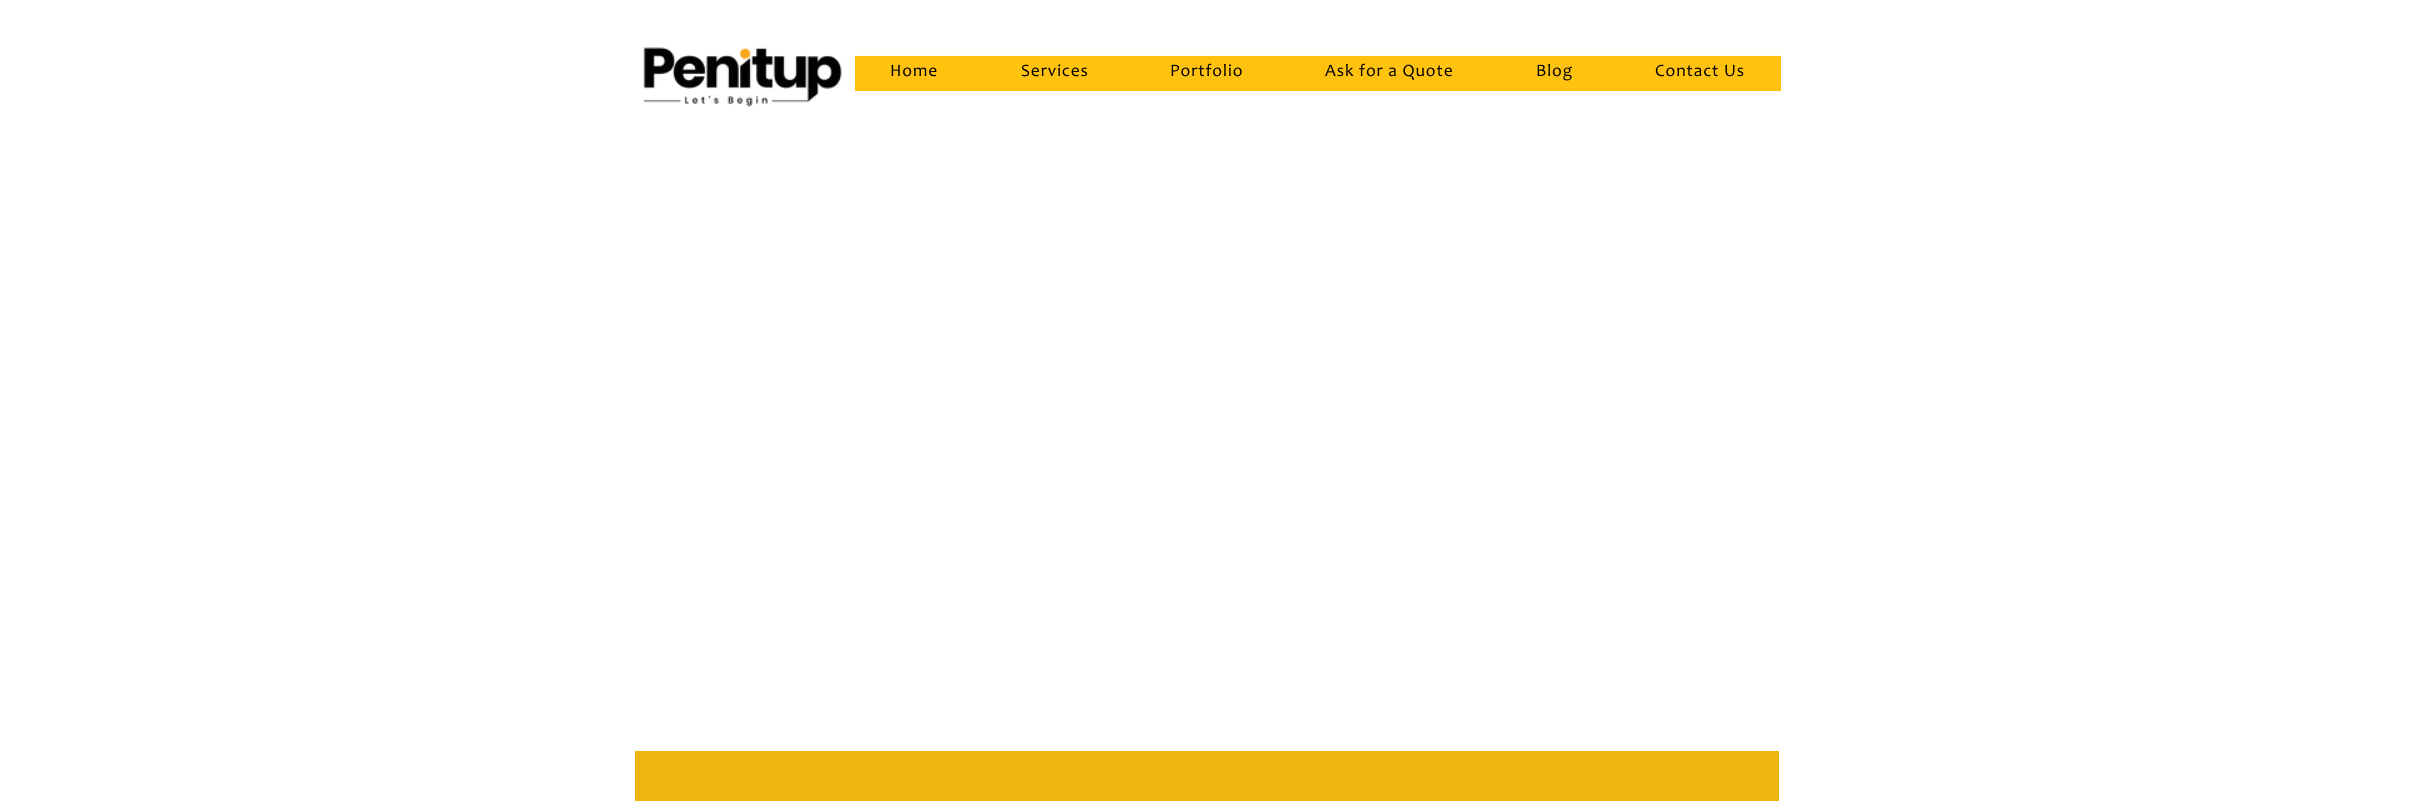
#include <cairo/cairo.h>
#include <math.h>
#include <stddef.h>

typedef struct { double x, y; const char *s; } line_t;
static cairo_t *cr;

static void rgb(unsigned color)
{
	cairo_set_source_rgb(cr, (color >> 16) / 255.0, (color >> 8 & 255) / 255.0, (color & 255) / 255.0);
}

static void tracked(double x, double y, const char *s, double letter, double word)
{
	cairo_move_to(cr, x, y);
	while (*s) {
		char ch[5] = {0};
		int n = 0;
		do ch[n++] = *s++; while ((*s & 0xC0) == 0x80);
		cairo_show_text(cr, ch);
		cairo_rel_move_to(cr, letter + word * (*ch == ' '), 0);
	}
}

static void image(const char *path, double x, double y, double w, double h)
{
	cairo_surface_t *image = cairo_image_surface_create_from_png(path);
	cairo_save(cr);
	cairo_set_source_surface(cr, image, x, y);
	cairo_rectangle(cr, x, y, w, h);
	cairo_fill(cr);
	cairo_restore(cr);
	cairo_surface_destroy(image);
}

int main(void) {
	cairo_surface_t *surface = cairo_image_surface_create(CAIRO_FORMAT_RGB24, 2413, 801);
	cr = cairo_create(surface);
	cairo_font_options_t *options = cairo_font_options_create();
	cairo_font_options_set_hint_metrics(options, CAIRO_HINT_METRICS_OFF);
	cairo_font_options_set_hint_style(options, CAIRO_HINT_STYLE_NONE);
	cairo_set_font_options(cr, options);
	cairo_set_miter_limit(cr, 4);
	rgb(0xffffff);
	cairo_paint(cr);
	rgb(0xfffdf8);
	cairo_rectangle(cr, 855, 50, 926, 46);
	cairo_fill(cr);
	image("img/1.png", 643, 47, 199, 60);
	rgb(0xffc20e);
	cairo_rectangle(cr, 855, 56, 926, 35);
	cairo_fill(cr);
	rgb(0xedb50e);
	cairo_rectangle(cr, 635, 751, 1144, 50);
	cairo_fill(cr);
	cairo_select_font_face(cr, "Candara", CAIRO_FONT_SLANT_NORMAL, CAIRO_FONT_WEIGHT_NORMAL);
	cairo_set_font_size(cr, 17.5);
	rgb(0x000000);
	{
		static const line_t items[] = {
			{890, 76, "Home"},
			{1021, 76, "Services"},
			{1170, 76, "Portfolio"},
			{1325, 76, "Ask for a Quote"},
			{1536, 76, "Blog"},
			{1655, 76, "Contact Us"},
		};
		for (size_t i = 0; i < sizeof items / sizeof *items; i++) {
			tracked(items[i].x, items[i].y, items[i].s, 0.9, 0);
		}
	}
	cairo_surface_write_to_png(surface, "page.png");
	cairo_font_options_destroy(options);
	cairo_destroy(cr);
	cairo_surface_destroy(surface);
	return 0;
}
